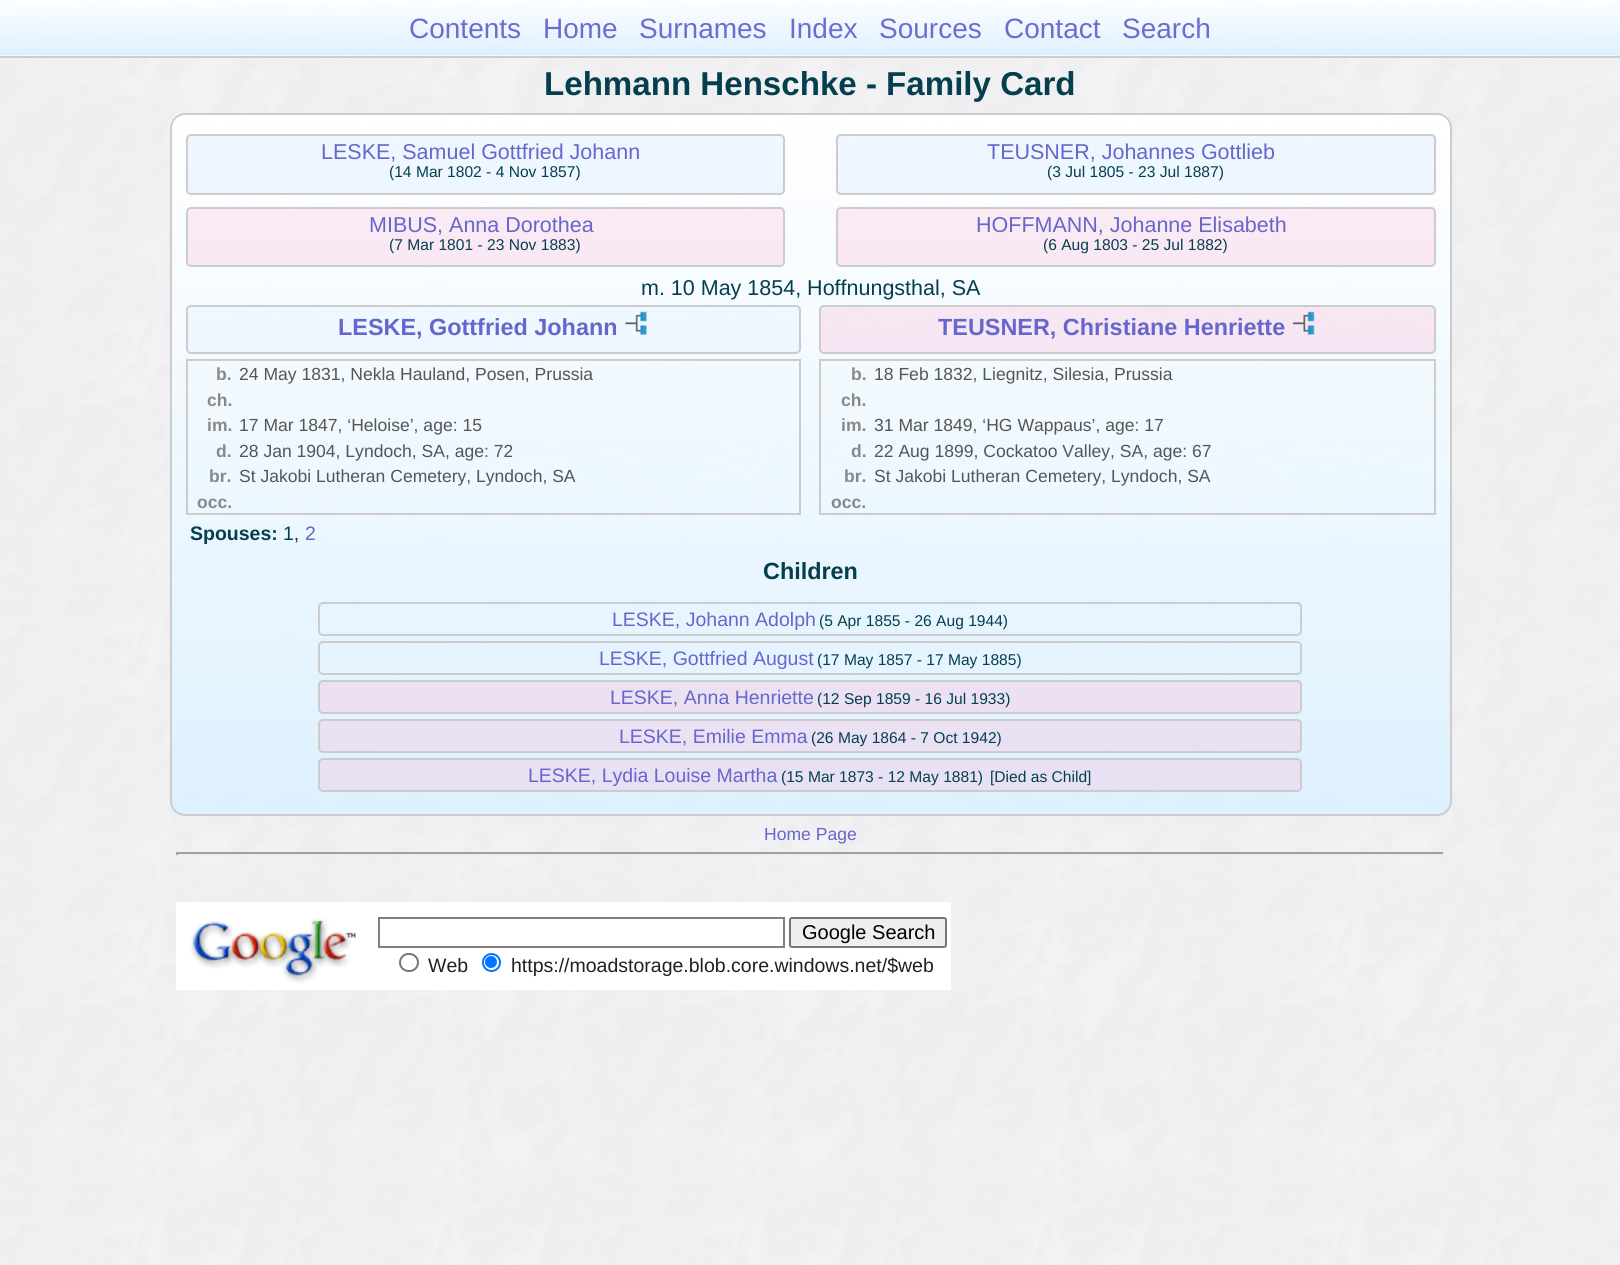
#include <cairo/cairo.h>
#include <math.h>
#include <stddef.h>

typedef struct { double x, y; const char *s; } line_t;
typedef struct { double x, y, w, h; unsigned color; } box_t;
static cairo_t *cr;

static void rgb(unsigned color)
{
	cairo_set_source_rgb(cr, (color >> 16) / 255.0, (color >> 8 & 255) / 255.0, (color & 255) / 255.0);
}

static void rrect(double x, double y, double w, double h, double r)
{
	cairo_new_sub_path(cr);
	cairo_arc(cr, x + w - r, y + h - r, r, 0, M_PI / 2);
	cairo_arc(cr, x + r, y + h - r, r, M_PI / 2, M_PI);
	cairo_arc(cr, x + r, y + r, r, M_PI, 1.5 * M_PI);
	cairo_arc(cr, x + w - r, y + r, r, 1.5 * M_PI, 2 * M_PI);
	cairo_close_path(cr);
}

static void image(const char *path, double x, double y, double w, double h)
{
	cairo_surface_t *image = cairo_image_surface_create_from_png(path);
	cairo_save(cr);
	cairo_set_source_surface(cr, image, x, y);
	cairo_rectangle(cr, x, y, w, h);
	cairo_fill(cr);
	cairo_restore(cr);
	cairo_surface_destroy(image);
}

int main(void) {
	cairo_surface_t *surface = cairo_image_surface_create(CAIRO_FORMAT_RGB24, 1620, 1265);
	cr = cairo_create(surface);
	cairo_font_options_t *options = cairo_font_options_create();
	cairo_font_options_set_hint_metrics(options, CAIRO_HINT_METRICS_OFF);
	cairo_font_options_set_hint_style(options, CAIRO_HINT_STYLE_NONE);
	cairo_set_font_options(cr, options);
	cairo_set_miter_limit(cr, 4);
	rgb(0xffffff);
	cairo_paint(cr);
	image("img/1.png", 0, 0, 1620, 1265);
	cairo_set_source_rgba(cr, 0.871, 0.945, 1, 0.95);
	cairo_rectangle(cr, 0, 0, 1620, 56);
	cairo_fill(cr);
	image("img/2.png", 0, 0, 1620, 57);
	cairo_set_source_rgba(cr, 0.8, 0.8, 0.8, 0.95);
	cairo_rectangle(cr, 0, 56, 1620, 2);
	cairo_fill(cr);
	cairo_set_source_rgba(cr, 0.871, 0.945, 1, 0.95);
	cairo_rectangle(cr, 0, 0, 1620, 56);
	cairo_fill(cr);
	image("img/3.png", 0, 0, 1620, 57);
	cairo_set_source_rgba(cr, 0.8, 0.8, 0.8, 0.95);
	cairo_rectangle(cr, 0, 56, 1620, 1);
	cairo_fill(cr);
	rgb(0xdef1ff);
	rrect(170, 113, 1282, 703, 15);
	cairo_fill(cr);
	image("img/4.png", 170, 114, 1282, 702);
	rrect(171, 114, 1280, 701, 14);
	rgb(0xcccccc);
	cairo_stroke(cr);
	cairo_set_source_rgba(cr, 0.878, 0.937, 0.996, 0.51);
	rrect(187, 135, 597, 59, 4);
	cairo_fill_preserve(cr);
	rgb(0xcccccc);
	cairo_stroke(cr);
	cairo_set_source_rgba(cr, 0.878, 0.937, 0.996, 0.51);
	rrect(837, 135, 598, 59, 4);
	cairo_fill_preserve(cr);
	rgb(0xcccccc);
	cairo_stroke(cr);
	cairo_set_source_rgba(cr, 0.988, 0.718, 0.839, 0.28);
	rrect(187, 208, 597, 58, 4);
	cairo_fill_preserve(cr);
	rgb(0xcccccc);
	cairo_stroke(cr);
	cairo_set_source_rgba(cr, 0.988, 0.718, 0.839, 0.28);
	rrect(837, 208, 598, 58, 4);
	cairo_fill_preserve(cr);
	rgb(0xcccccc);
	cairo_stroke(cr);
	cairo_set_source_rgba(cr, 0.878, 0.937, 0.996, 0.3);
	rrect(187, 306, 613, 47, 4);
	cairo_fill_preserve(cr);
	rgb(0xcccccc);
	cairo_stroke(cr);
	image("img/5.png", 625, 311, 22, 24);
	cairo_set_source_rgba(cr, 0.988, 0.718, 0.839, 0.3);
	rrect(820, 306, 615, 47, 4);
	cairo_fill_preserve(cr);
	rgb(0xcccccc);
	cairo_stroke(cr);
	image("img/6.png", 1292, 311, 23, 24);
	cairo_rectangle(cr, 187, 360, 613, 154);
	cairo_stroke(cr);
	cairo_rectangle(cr, 820, 360, 615, 154);
	cairo_stroke(cr);
	rrect(319, 603, 982, 32, 4);
	cairo_stroke(cr);
	rrect(319, 642, 982, 32, 4);
	cairo_stroke(cr);
	rgb(0xebe1f3);
	rrect(319, 681, 982, 32, 4);
	cairo_fill_preserve(cr);
	rgb(0xcccccc);
	cairo_stroke(cr);
	cairo_set_source_rgba(cr, 0.988, 0.718, 0.839, 0.3);
	rrect(319, 720, 982, 32, 4);
	cairo_fill_preserve(cr);
	rgb(0xcccccc);
	cairo_stroke(cr);
	cairo_set_source_rgba(cr, 0.988, 0.718, 0.839, 0.3);
	rrect(319, 759, 982, 32, 4);
	cairo_fill_preserve(cr);
	rgb(0xcccccc);
	cairo_stroke(cr);
	{
		static const box_t items[] = {
			{176, 852, 1269, 2, 0x9f9f9f},
			{1443, 852, 2, 3, 0xeeeeee},
			{176, 854, 1269, 2, 0xeeeeee},
			{176, 852, 2, 3, 0x9f9f9f},
			{176, 902, 775, 88, 0xffffff},
		};
		for (size_t i = 0; i < sizeof items / sizeof *items; i++) {
			rgb(items[i].color);
			cairo_rectangle(cr, items[i].x, items[i].y, items[i].w, items[i].h);
			cairo_fill(cr);
		}
	}
	image("img/7.png", 189, 918, 167, 66);
	cairo_rectangle(cr, 379, 918, 405, 29);
	rgb(0x808080);
	cairo_stroke(cr);
	rgb(0xefefef);
	rrect(790, 918, 156, 29, 2);
	cairo_fill_preserve(cr);
	rgb(0x767676);
	cairo_stroke(cr);
	rrect(400, 954, 18, 17, 8.5);
	cairo_stroke(cr);
	cairo_arc(cr, 491.5, 962.5, 8.5, 0, 2 * M_PI);
	rgb(0x0075ff);
	cairo_stroke(cr);
	cairo_arc(cr, 491, 962, 6, 0, 2 * M_PI);
	cairo_fill(cr);
	cairo_select_font_face(cr, "Liberation Sans", CAIRO_FONT_SLANT_NORMAL, CAIRO_FONT_WEIGHT_NORMAL);
	cairo_set_font_size(cr, 28);
	rgb(0x6d6dcf);
	{
		static const line_t items[] = {
			{409, 38, "Contents"},
			{543, 38, "Home"},
			{639, 38, "Surnames"},
			{789, 38, "Index"},
			{879, 38, "Sources"},
			{1004, 38, "Contact"},
			{1122, 38, "Search"},
		};
		for (size_t i = 0; i < sizeof items / sizeof *items; i++) {
			cairo_move_to(cr, items[i].x, items[i].y);
			cairo_show_text(cr, items[i].s);
		}
	}
	cairo_select_font_face(cr, "Liberation Sans", CAIRO_FONT_SLANT_NORMAL, CAIRO_FONT_WEIGHT_BOLD);
	cairo_set_font_size(cr, 33.1);
	rgb(0x043f4e);
	cairo_move_to(cr, 544, 95);
	cairo_show_text(cr, "Lehmann Henschke - Family Card");
	cairo_select_font_face(cr, "Liberation Sans", CAIRO_FONT_SLANT_NORMAL, CAIRO_FONT_WEIGHT_NORMAL);
	cairo_set_font_size(cr, 21.5);
	rgb(0x6666cc);
	cairo_move_to(cr, 321, 159);
	cairo_show_text(cr, "LESKE, Samuel Gottfried Johann");
	cairo_set_font_size(cr, 15.6);
	rgb(0x043f4e);
	cairo_move_to(cr, 389, 177);
	cairo_show_text(cr, "(14 Mar 1802 - 4 Nov 1857)");
	cairo_set_font_size(cr, 21.5);
	rgb(0x6666cc);
	cairo_move_to(cr, 987, 159);
	cairo_show_text(cr, "TEUSNER, Johannes Gottlieb");
	cairo_set_font_size(cr, 15.6);
	rgb(0x043f4e);
	cairo_move_to(cr, 1047, 177);
	cairo_show_text(cr, "(3 Jul 1805 - 23 Jul 1887)");
	cairo_set_font_size(cr, 21.5);
	rgb(0x6666cc);
	cairo_move_to(cr, 369, 232);
	cairo_show_text(cr, "MIBUS, Anna Dorothea");
	cairo_set_font_size(cr, 15.6);
	rgb(0x043f4e);
	cairo_move_to(cr, 389, 250);
	cairo_show_text(cr, "(7 Mar 1801 - 23 Nov 1883)");
	cairo_set_font_size(cr, 21.5);
	rgb(0x6666cc);
	cairo_move_to(cr, 976, 232);
	cairo_show_text(cr, "HOFFMANN, Johanne Elisabeth");
	cairo_set_font_size(cr, 15.6);
	rgb(0x043f4e);
	cairo_move_to(cr, 1043, 250);
	cairo_show_text(cr, "(6 Aug 1803 - 25 Jul 1882)");
	cairo_set_font_size(cr, 21.5);
	cairo_move_to(cr, 641, 295);
	cairo_show_text(cr, "m. 10 May 1854, Hoffnungsthal, SA");
	cairo_select_font_face(cr, "Liberation Sans", CAIRO_FONT_SLANT_NORMAL, CAIRO_FONT_WEIGHT_BOLD);
	cairo_set_font_size(cr, 23.4);
	rgb(0x6666cc);
	cairo_move_to(cr, 338, 335);
	cairo_show_text(cr, "LESKE, Gottfried Johann");
	cairo_move_to(cr, 938, 335);
	cairo_show_text(cr, "TEUSNER, Christiane Henriette");
	cairo_set_font_size(cr, 17.55);
	rgb(0x888888);
	cairo_move_to(cr, 216, 380);
	cairo_show_text(cr, "b.");
	cairo_select_font_face(cr, "Liberation Sans", CAIRO_FONT_SLANT_NORMAL, CAIRO_FONT_WEIGHT_NORMAL);
	rgb(0x555555);
	cairo_move_to(cr, 239, 380);
	cairo_show_text(cr, "24 May 1831, Nekla Hauland, Posen, Prussia");
	cairo_select_font_face(cr, "Liberation Sans", CAIRO_FONT_SLANT_NORMAL, CAIRO_FONT_WEIGHT_BOLD);
	rgb(0x888888);
	cairo_move_to(cr, 207, 406);
	cairo_show_text(cr, "ch.");
	cairo_move_to(cr, 207, 431);
	cairo_show_text(cr, "im.");
	cairo_select_font_face(cr, "Liberation Sans", CAIRO_FONT_SLANT_NORMAL, CAIRO_FONT_WEIGHT_NORMAL);
	rgb(0x555555);
	cairo_move_to(cr, 239, 431);
	cairo_show_text(cr, "17 Mar 1847, ‘Heloise’, age: 15");
	cairo_select_font_face(cr, "Liberation Sans", CAIRO_FONT_SLANT_NORMAL, CAIRO_FONT_WEIGHT_BOLD);
	rgb(0x888888);
	cairo_move_to(cr, 216, 457);
	cairo_show_text(cr, "d.");
	cairo_select_font_face(cr, "Liberation Sans", CAIRO_FONT_SLANT_NORMAL, CAIRO_FONT_WEIGHT_NORMAL);
	rgb(0x555555);
	cairo_move_to(cr, 239, 457);
	cairo_show_text(cr, "28 Jan 1904, Lyndoch, SA, age: 72");
	cairo_select_font_face(cr, "Liberation Sans", CAIRO_FONT_SLANT_NORMAL, CAIRO_FONT_WEIGHT_BOLD);
	rgb(0x888888);
	cairo_move_to(cr, 209, 482);
	cairo_show_text(cr, "br.");
	cairo_select_font_face(cr, "Liberation Sans", CAIRO_FONT_SLANT_NORMAL, CAIRO_FONT_WEIGHT_NORMAL);
	rgb(0x555555);
	cairo_move_to(cr, 239, 482);
	cairo_show_text(cr, "St Jakobi Lutheran Cemetery, Lyndoch, SA");
	cairo_select_font_face(cr, "Liberation Sans", CAIRO_FONT_SLANT_NORMAL, CAIRO_FONT_WEIGHT_BOLD);
	rgb(0x888888);
	cairo_move_to(cr, 197, 508);
	cairo_show_text(cr, "occ.");
	cairo_move_to(cr, 851, 380);
	cairo_show_text(cr, "b.");
	cairo_select_font_face(cr, "Liberation Sans", CAIRO_FONT_SLANT_NORMAL, CAIRO_FONT_WEIGHT_NORMAL);
	rgb(0x555555);
	cairo_move_to(cr, 874, 380);
	cairo_show_text(cr, "18 Feb 1832, Liegnitz, Silesia, Prussia");
	cairo_select_font_face(cr, "Liberation Sans", CAIRO_FONT_SLANT_NORMAL, CAIRO_FONT_WEIGHT_BOLD);
	rgb(0x888888);
	cairo_move_to(cr, 841, 406);
	cairo_show_text(cr, "ch.");
	cairo_move_to(cr, 841, 431);
	cairo_show_text(cr, "im.");
	cairo_select_font_face(cr, "Liberation Sans", CAIRO_FONT_SLANT_NORMAL, CAIRO_FONT_WEIGHT_NORMAL);
	rgb(0x555555);
	cairo_move_to(cr, 874, 431);
	cairo_show_text(cr, "31 Mar 1849, ‘HG Wappaus’, age: 17");
	cairo_select_font_face(cr, "Liberation Sans", CAIRO_FONT_SLANT_NORMAL, CAIRO_FONT_WEIGHT_BOLD);
	rgb(0x888888);
	cairo_move_to(cr, 851, 457);
	cairo_show_text(cr, "d.");
	cairo_select_font_face(cr, "Liberation Sans", CAIRO_FONT_SLANT_NORMAL, CAIRO_FONT_WEIGHT_NORMAL);
	rgb(0x555555);
	cairo_move_to(cr, 874, 457);
	cairo_show_text(cr, "22 Aug 1899, Cockatoo Valley, SA, age: 67");
	cairo_select_font_face(cr, "Liberation Sans", CAIRO_FONT_SLANT_NORMAL, CAIRO_FONT_WEIGHT_BOLD);
	rgb(0x888888);
	cairo_move_to(cr, 844, 482);
	cairo_show_text(cr, "br.");
	cairo_select_font_face(cr, "Liberation Sans", CAIRO_FONT_SLANT_NORMAL, CAIRO_FONT_WEIGHT_NORMAL);
	rgb(0x555555);
	cairo_move_to(cr, 874, 482);
	cairo_show_text(cr, "St Jakobi Lutheran Cemetery, Lyndoch, SA");
	cairo_select_font_face(cr, "Liberation Sans", CAIRO_FONT_SLANT_NORMAL, CAIRO_FONT_WEIGHT_BOLD);
	rgb(0x888888);
	cairo_move_to(cr, 831, 508);
	cairo_show_text(cr, "occ.");
	cairo_set_font_size(cr, 19.5);
	rgb(0x043f4e);
	cairo_move_to(cr, 190, 540);
	cairo_show_text(cr, "Spouses:");
	cairo_select_font_face(cr, "Liberation Sans", CAIRO_FONT_SLANT_NORMAL, CAIRO_FONT_WEIGHT_NORMAL);
	cairo_move_to(cr, 283, 540);
	cairo_show_text(cr, "1,");
	rgb(0x6666cc);
	cairo_move_to(cr, 305, 540);
	cairo_show_text(cr, "2");
	cairo_select_font_face(cr, "Liberation Sans", CAIRO_FONT_SLANT_NORMAL, CAIRO_FONT_WEIGHT_BOLD);
	cairo_set_font_size(cr, 23.4);
	rgb(0x043f4e);
	cairo_move_to(cr, 763, 579);
	cairo_show_text(cr, "Children");
	cairo_select_font_face(cr, "Liberation Sans", CAIRO_FONT_SLANT_NORMAL, CAIRO_FONT_WEIGHT_NORMAL);
	cairo_set_font_size(cr, 19.5);
	rgb(0x6666cc);
	cairo_move_to(cr, 612, 626);
	cairo_show_text(cr, "LESKE, Johann Adolph");
	cairo_set_font_size(cr, 15.6);
	rgb(0x043f4e);
	cairo_move_to(cr, 819, 626);
	cairo_show_text(cr, "(5 Apr 1855 - 26 Aug 1944)");
	cairo_set_font_size(cr, 19.5);
	rgb(0x6666cc);
	cairo_move_to(cr, 599, 665);
	cairo_show_text(cr, "LESKE, Gottfried August");
	cairo_set_font_size(cr, 15.6);
	rgb(0x043f4e);
	cairo_move_to(cr, 817, 665);
	cairo_show_text(cr, "(17 May 1857 - 17 May 1885)");
	cairo_set_font_size(cr, 19.5);
	rgb(0x6666cc);
	cairo_move_to(cr, 610, 704);
	cairo_show_text(cr, "LESKE, Anna Henriette");
	cairo_set_font_size(cr, 15.6);
	rgb(0x043f4e);
	cairo_move_to(cr, 817, 704);
	cairo_show_text(cr, "(12 Sep 1859 - 16 Jul 1933)");
	cairo_set_font_size(cr, 19.5);
	rgb(0x6666cc);
	cairo_move_to(cr, 619, 743);
	cairo_show_text(cr, "LESKE, Emilie Emma");
	cairo_set_font_size(cr, 15.6);
	rgb(0x043f4e);
	cairo_move_to(cr, 811, 743);
	cairo_show_text(cr, "(26 May 1864 - 7 Oct 1942)");
	cairo_set_font_size(cr, 19.5);
	rgb(0x6666cc);
	cairo_move_to(cr, 528, 782);
	cairo_show_text(cr, "LESKE, Lydia Louise Martha");
	cairo_set_font_size(cr, 15.6);
	rgb(0x043f4e);
	cairo_move_to(cr, 781, 782);
	cairo_show_text(cr, "(15 Mar 1873 - 12 May 1881)");
	cairo_move_to(cr, 990, 782);
	cairo_show_text(cr, "[Died as Child]");
	cairo_set_font_size(cr, 17.55);
	rgb(0x6666cc);
	cairo_move_to(cr, 764, 840);
	cairo_show_text(cr, "Home Page");
	cairo_set_font_size(cr, 20);
	rgb(0x000000);
	cairo_move_to(cr, 802, 939);
	cairo_show_text(cr, "Google Search");
	cairo_set_font_size(cr, 19.5);
	rgb(0x202020);
	cairo_move_to(cr, 428, 972);
	cairo_show_text(cr, "Web");
	cairo_move_to(cr, 511, 972);
	cairo_show_text(cr, "https://moadstorage.blob.core.windows.net/$web");
	cairo_surface_write_to_png(surface, "page.png");
	cairo_font_options_destroy(options);
	cairo_destroy(cr);
	cairo_surface_destroy(surface);
	return 0;
}
